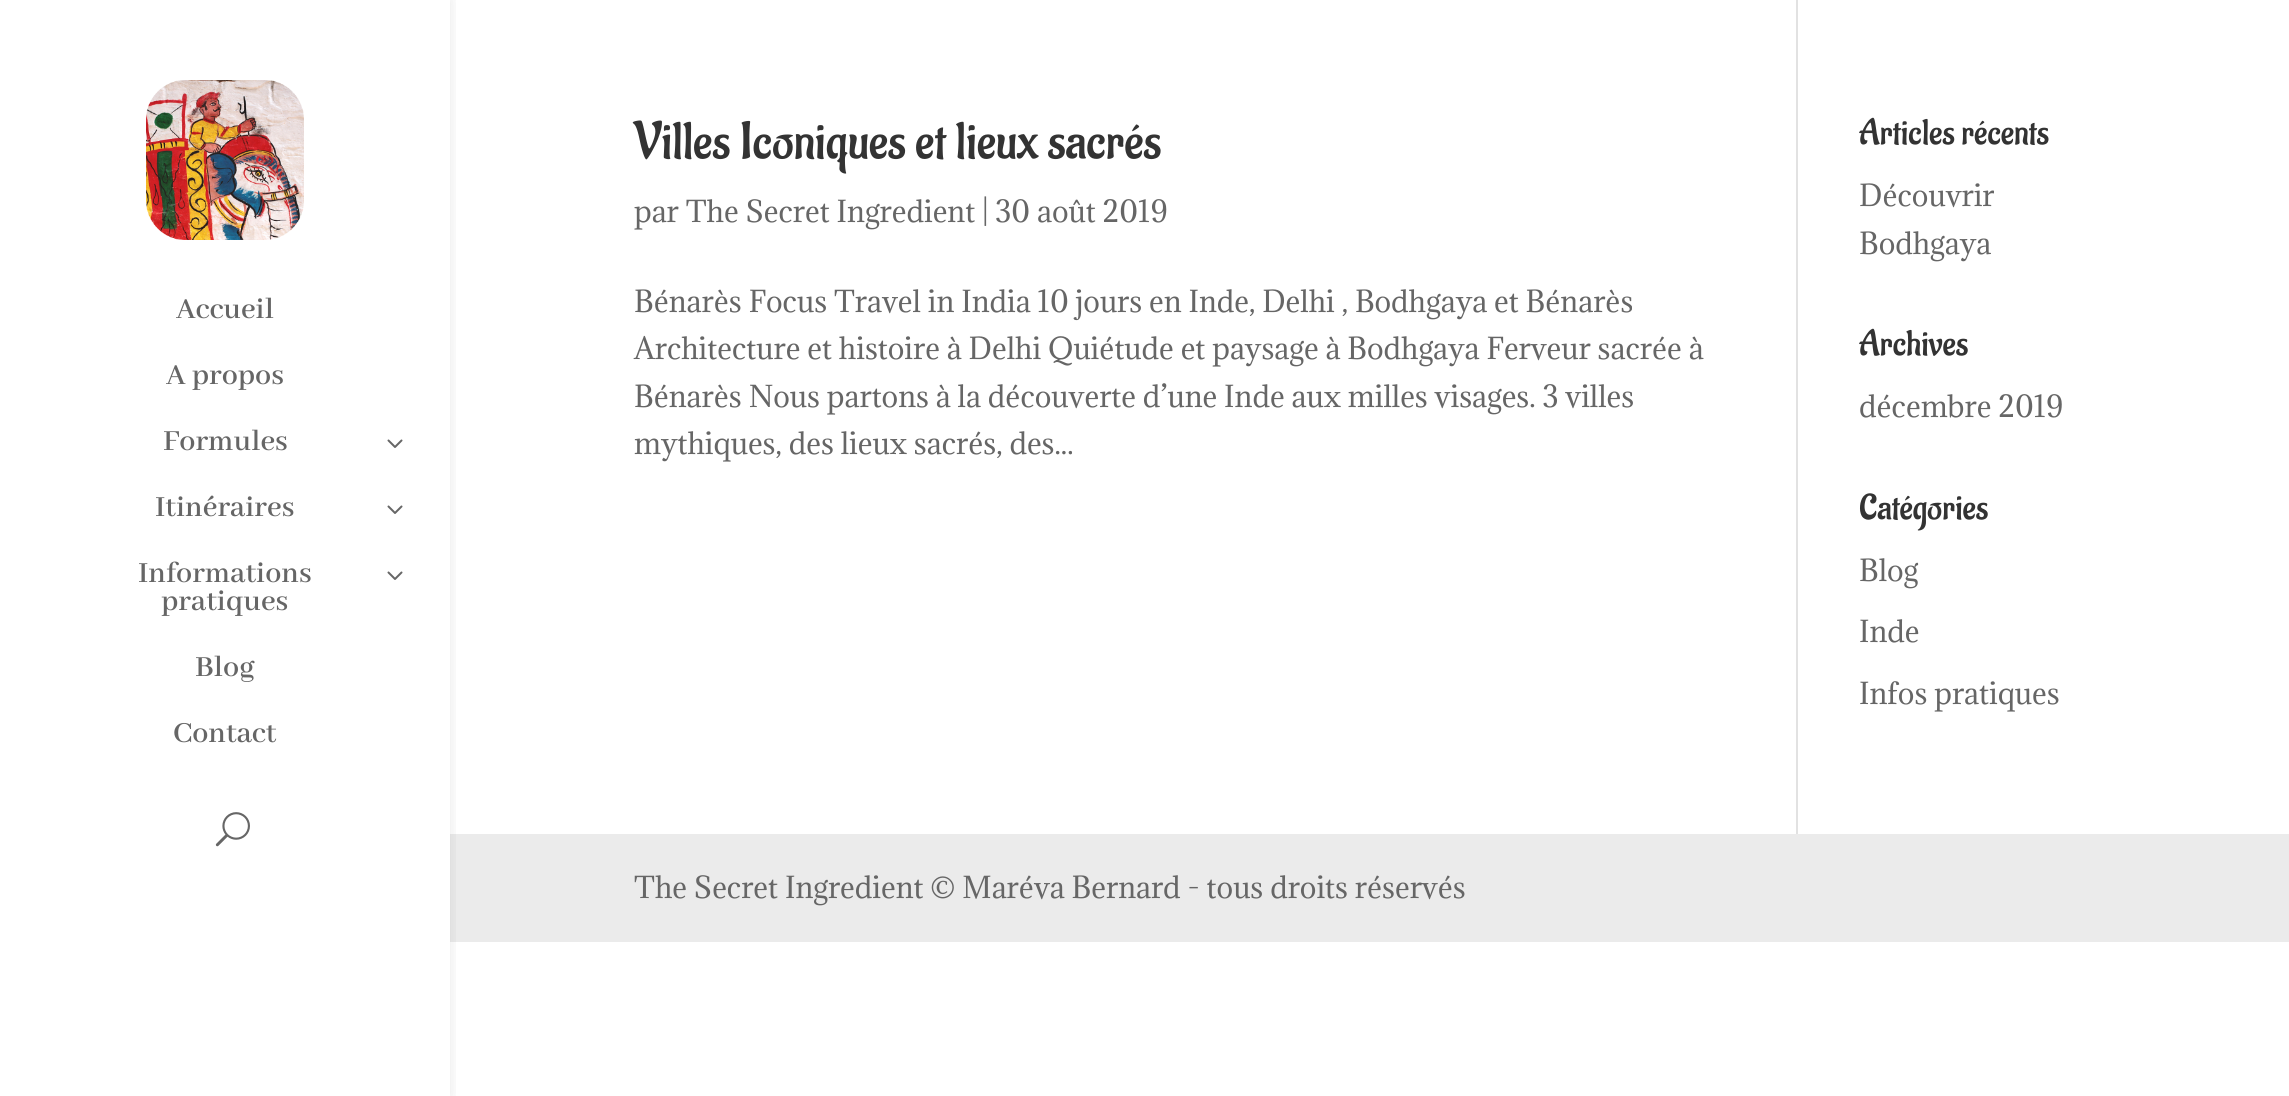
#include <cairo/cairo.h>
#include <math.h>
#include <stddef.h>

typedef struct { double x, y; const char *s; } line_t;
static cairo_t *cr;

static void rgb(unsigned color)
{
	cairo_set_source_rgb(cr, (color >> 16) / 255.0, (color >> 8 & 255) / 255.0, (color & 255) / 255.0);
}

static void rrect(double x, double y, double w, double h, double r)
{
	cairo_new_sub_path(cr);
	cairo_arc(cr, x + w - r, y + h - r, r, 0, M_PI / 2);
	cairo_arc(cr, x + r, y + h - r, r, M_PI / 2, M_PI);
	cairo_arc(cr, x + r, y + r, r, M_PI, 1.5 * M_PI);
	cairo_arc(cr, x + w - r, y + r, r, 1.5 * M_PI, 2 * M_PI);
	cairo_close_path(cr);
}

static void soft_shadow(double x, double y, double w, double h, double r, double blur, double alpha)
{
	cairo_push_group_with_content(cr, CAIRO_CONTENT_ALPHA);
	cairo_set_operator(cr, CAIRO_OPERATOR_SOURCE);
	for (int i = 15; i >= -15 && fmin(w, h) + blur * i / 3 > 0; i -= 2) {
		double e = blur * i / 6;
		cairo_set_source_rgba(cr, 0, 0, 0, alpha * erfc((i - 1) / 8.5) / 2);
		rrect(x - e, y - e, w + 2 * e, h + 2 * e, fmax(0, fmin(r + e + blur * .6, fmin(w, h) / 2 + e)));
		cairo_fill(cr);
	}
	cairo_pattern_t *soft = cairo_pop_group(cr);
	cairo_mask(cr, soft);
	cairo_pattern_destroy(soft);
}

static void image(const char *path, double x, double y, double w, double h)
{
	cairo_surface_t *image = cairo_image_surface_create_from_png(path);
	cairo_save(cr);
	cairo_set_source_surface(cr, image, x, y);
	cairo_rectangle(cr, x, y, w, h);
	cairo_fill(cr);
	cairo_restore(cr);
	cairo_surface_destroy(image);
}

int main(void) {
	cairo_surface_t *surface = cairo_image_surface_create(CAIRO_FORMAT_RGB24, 2289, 1096);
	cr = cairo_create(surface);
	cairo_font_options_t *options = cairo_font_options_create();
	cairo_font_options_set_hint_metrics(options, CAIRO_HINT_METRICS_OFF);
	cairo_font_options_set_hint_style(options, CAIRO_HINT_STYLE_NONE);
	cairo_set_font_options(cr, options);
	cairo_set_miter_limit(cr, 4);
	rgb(0xffffff);
	cairo_paint(cr);
	rgb(0xebebeb);
	cairo_rectangle(cr, 450, 834, 1839, 108);
	cairo_fill(cr);
	cairo_save(cr);
	cairo_rectangle(cr, 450, 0, 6, 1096);
	cairo_clip(cr);
	rgb(0x000000);
	soft_shadow(0, 0, 450, 1096, 0, 7, 0.1);
	cairo_restore(cr);
	image("img/1.png", 146, 80, 158, 160);
	image("img/2.png", 387, 439, 16, 9);
	image("img/2.png", 387, 505, 16, 9);
	image("img/2.png", 387, 571, 16, 9);
	image("img/3.png", 215, 812, 35, 35);
	rgb(0xe2e2e2);
	cairo_rectangle(cr, 1796, 0, 2, 834);
	cairo_fill(cr);
	cairo_select_font_face(cr, "Abhaya Libre SemiBold SemiBold", CAIRO_FONT_SLANT_NORMAL, CAIRO_FONT_WEIGHT_NORMAL);
	cairo_set_font_size(cr, 32);
	rgb(0x666666);
	{
		static const line_t items[] = {
			{176, 318, "Accueil"},
			{166, 384, "A propos"},
			{163, 450, "Formules"},
			{155, 516, "Itinéraires"},
			{138, 582, "Informations"},
			{161, 610, "pratiques"},
			{195, 676, "Blog"},
			{173, 742, "Contact"},
		};
		for (size_t i = 0; i < sizeof items / sizeof *items; i++) {
			cairo_move_to(cr, items[i].x, items[i].y);
			cairo_show_text(cr, items[i].s);
		}
	}
	cairo_select_font_face(cr, "Aladin", CAIRO_FONT_SLANT_NORMAL, CAIRO_FONT_WEIGHT_NORMAL);
	cairo_set_font_size(cr, 52);
	rgb(0x333333);
	cairo_move_to(cr, 634, 158);
	cairo_show_text(cr, "Villes Iconiques et lieux sacrés");
	cairo_select_font_face(cr, "Adamina", CAIRO_FONT_SLANT_NORMAL, CAIRO_FONT_WEIGHT_NORMAL);
	cairo_set_font_size(cr, 28);
	rgb(0x666666);
	{
		static const line_t items[] = {
			{634, 222, "par The Secret Ingredient | 30 août 2019"},
			{634, 312, "Bénarès Focus Travel in India 10 jours en Inde, Delhi , Bodhgaya et Bénarès"},
			{634, 359, "Architecture et histoire à Delhi Quiétude et paysage à Bodhgaya Ferveur sacrée à"},
			{634, 407, "Bénarès Nous partons à la découverte d’une Inde aux milles visages. 3 villes"},
			{634, 454, "mythiques, des lieux sacrés, des..."},
		};
		for (size_t i = 0; i < sizeof items / sizeof *items; i++) {
			cairo_move_to(cr, items[i].x, items[i].y);
			cairo_show_text(cr, items[i].s);
		}
	}
	cairo_select_font_face(cr, "Aladin", CAIRO_FONT_SLANT_NORMAL, CAIRO_FONT_WEIGHT_NORMAL);
	cairo_set_font_size(cr, 36);
	rgb(0x333333);
	cairo_move_to(cr, 1859, 144);
	cairo_show_text(cr, "Articles récents");
	cairo_select_font_face(cr, "Adamina", CAIRO_FONT_SLANT_NORMAL, CAIRO_FONT_WEIGHT_NORMAL);
	cairo_set_font_size(cr, 28);
	rgb(0x666666);
	cairo_move_to(cr, 1859, 206);
	cairo_show_text(cr, "Découvrir");
	cairo_move_to(cr, 1859, 254);
	cairo_show_text(cr, "Bodhgaya");
	cairo_select_font_face(cr, "Aladin", CAIRO_FONT_SLANT_NORMAL, CAIRO_FONT_WEIGHT_NORMAL);
	cairo_set_font_size(cr, 36);
	rgb(0x333333);
	cairo_move_to(cr, 1859, 355);
	cairo_show_text(cr, "Archives");
	cairo_select_font_face(cr, "Adamina", CAIRO_FONT_SLANT_NORMAL, CAIRO_FONT_WEIGHT_NORMAL);
	cairo_set_font_size(cr, 28);
	rgb(0x666666);
	cairo_move_to(cr, 1859, 417);
	cairo_show_text(cr, "décembre 2019");
	cairo_select_font_face(cr, "Aladin", CAIRO_FONT_SLANT_NORMAL, CAIRO_FONT_WEIGHT_NORMAL);
	cairo_set_font_size(cr, 36);
	rgb(0x333333);
	cairo_move_to(cr, 1859, 519);
	cairo_show_text(cr, "Catégories");
	cairo_select_font_face(cr, "Adamina", CAIRO_FONT_SLANT_NORMAL, CAIRO_FONT_WEIGHT_NORMAL);
	cairo_set_font_size(cr, 28);
	rgb(0x666666);
	{
		static const line_t items[] = {
			{1859, 581, "Blog"},
			{1859, 642, "Inde"},
			{1859, 704, "Infos pratiques"},
			{634, 898, "The Secret Ingredient © Maréva Bernard - tous droits réservés"},
		};
		for (size_t i = 0; i < sizeof items / sizeof *items; i++) {
			cairo_move_to(cr, items[i].x, items[i].y);
			cairo_show_text(cr, items[i].s);
		}
	}
	cairo_surface_write_to_png(surface, "page.png");
	cairo_font_options_destroy(options);
	cairo_destroy(cr);
	cairo_surface_destroy(surface);
	return 0;
}
